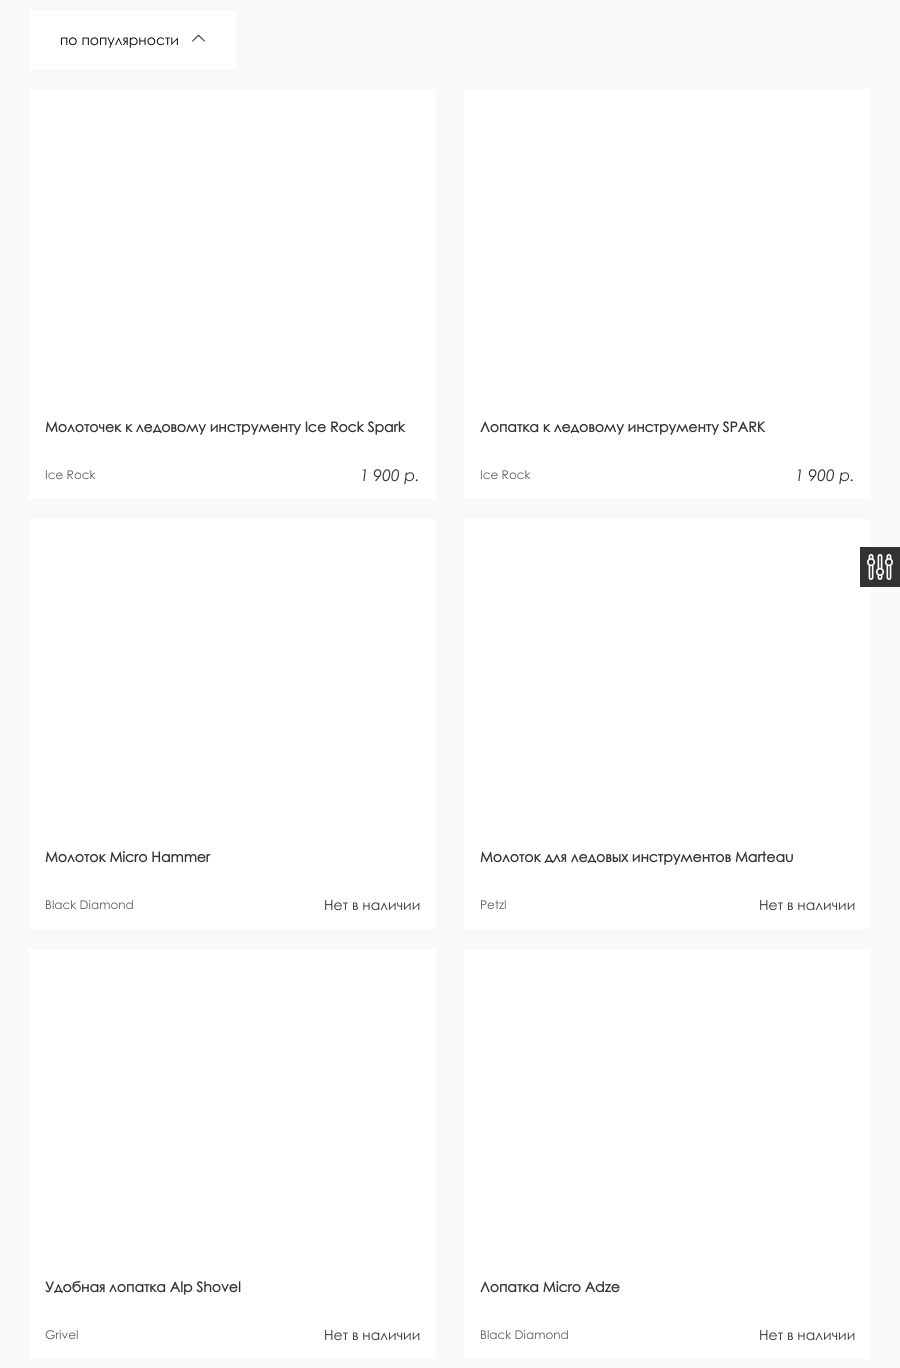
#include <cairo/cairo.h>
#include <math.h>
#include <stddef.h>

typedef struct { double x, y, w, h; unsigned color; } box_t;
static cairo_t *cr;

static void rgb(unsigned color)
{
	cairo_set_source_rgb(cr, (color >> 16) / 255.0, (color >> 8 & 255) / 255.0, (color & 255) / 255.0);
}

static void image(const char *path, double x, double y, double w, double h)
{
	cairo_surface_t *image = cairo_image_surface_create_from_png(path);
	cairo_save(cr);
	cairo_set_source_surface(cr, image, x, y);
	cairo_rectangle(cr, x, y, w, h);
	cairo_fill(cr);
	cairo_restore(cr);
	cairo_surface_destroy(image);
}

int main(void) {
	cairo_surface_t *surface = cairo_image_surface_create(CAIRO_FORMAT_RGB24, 900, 1368);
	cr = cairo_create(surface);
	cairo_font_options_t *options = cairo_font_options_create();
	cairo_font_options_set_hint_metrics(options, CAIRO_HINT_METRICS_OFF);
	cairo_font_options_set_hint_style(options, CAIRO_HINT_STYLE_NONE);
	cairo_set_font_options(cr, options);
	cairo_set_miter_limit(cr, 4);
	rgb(0xf9f9f9);
	cairo_paint(cr);
	rgb(0xffffff);
	cairo_rectangle(cr, 30, 11, 206, 58);
	cairo_fill(cr);
	image("img/1.png", 192, 34, 13, 8);
	{
		static const box_t items[] = {
			{29, 89, 407, 410, 0xffffff},
			{464, 89, 407, 410, 0xffffff},
			{29, 519, 407, 410, 0xffffff},
			{464, 519, 407, 410, 0xffffff},
			{29, 949, 407, 410, 0xffffff},
			{464, 949, 407, 410, 0xffffff},
			{860, 547, 40, 40, 0x333333},
		};
		for (size_t i = 0; i < sizeof items / sizeof *items; i++) {
			rgb(items[i].color);
			cairo_rectangle(cr, items[i].x, items[i].y, items[i].w, items[i].h);
			cairo_fill(cr);
		}
	}
	image("img/2.png", 867, 554, 26, 26);
	cairo_select_font_face(cr, "Century Gothic", CAIRO_FONT_SLANT_NORMAL, CAIRO_FONT_WEIGHT_NORMAL);
	cairo_set_font_size(cr, 14);
	rgb(0x000000);
	cairo_move_to(cr, 60, 45);
	cairo_show_text(cr, "по популярности");
	cairo_select_font_face(cr, "Century Gothic", CAIRO_FONT_SLANT_NORMAL, CAIRO_FONT_WEIGHT_BOLD);
	rgb(0x333333);
	cairo_move_to(cr, 45, 432);
	cairo_show_text(cr, "Молоточек к ледовому инструменту Ice Rock Spark");
	cairo_select_font_face(cr, "Century Gothic", CAIRO_FONT_SLANT_NORMAL, CAIRO_FONT_WEIGHT_NORMAL);
	cairo_set_font_size(cr, 12);
	rgb(0x5b5b5b);
	cairo_move_to(cr, 45, 479);
	cairo_show_text(cr, "Ice Rock");
	cairo_select_font_face(cr, "Century Gothic", CAIRO_FONT_SLANT_ITALIC, CAIRO_FONT_WEIGHT_NORMAL);
	cairo_set_font_size(cr, 16);
	rgb(0x333333);
	cairo_move_to(cr, 360, 481);
	cairo_show_text(cr, "1 900 р.");
	cairo_select_font_face(cr, "Century Gothic", CAIRO_FONT_SLANT_NORMAL, CAIRO_FONT_WEIGHT_BOLD);
	cairo_set_font_size(cr, 14);
	cairo_move_to(cr, 480, 432);
	cairo_show_text(cr, "Лопатка к ледовому инструменту SPARK");
	cairo_select_font_face(cr, "Century Gothic", CAIRO_FONT_SLANT_NORMAL, CAIRO_FONT_WEIGHT_NORMAL);
	cairo_set_font_size(cr, 12);
	rgb(0x5b5b5b);
	cairo_move_to(cr, 480, 479);
	cairo_show_text(cr, "Ice Rock");
	cairo_select_font_face(cr, "Century Gothic", CAIRO_FONT_SLANT_ITALIC, CAIRO_FONT_WEIGHT_NORMAL);
	cairo_set_font_size(cr, 16);
	rgb(0x333333);
	cairo_move_to(cr, 795, 481);
	cairo_show_text(cr, "1 900 р.");
	cairo_select_font_face(cr, "Century Gothic", CAIRO_FONT_SLANT_NORMAL, CAIRO_FONT_WEIGHT_BOLD);
	cairo_set_font_size(cr, 14);
	cairo_move_to(cr, 45, 862);
	cairo_show_text(cr, "Молоток Micro Hammer");
	cairo_select_font_face(cr, "Century Gothic", CAIRO_FONT_SLANT_NORMAL, CAIRO_FONT_WEIGHT_NORMAL);
	cairo_set_font_size(cr, 12);
	rgb(0x5b5b5b);
	cairo_move_to(cr, 45, 909);
	cairo_show_text(cr, "Black Diamond");
	cairo_set_font_size(cr, 14);
	rgb(0x333333);
	cairo_move_to(cr, 324, 910);
	cairo_show_text(cr, "Нет в наличии");
	cairo_select_font_face(cr, "Century Gothic", CAIRO_FONT_SLANT_NORMAL, CAIRO_FONT_WEIGHT_BOLD);
	cairo_move_to(cr, 480, 862);
	cairo_show_text(cr, "Молоток для ледовых инструментов Marteau");
	cairo_select_font_face(cr, "Century Gothic", CAIRO_FONT_SLANT_NORMAL, CAIRO_FONT_WEIGHT_NORMAL);
	cairo_set_font_size(cr, 12);
	rgb(0x5b5b5b);
	cairo_move_to(cr, 480, 909);
	cairo_show_text(cr, "Petzl");
	cairo_set_font_size(cr, 14);
	rgb(0x333333);
	cairo_move_to(cr, 759, 910);
	cairo_show_text(cr, "Нет в наличии");
	cairo_select_font_face(cr, "Century Gothic", CAIRO_FONT_SLANT_NORMAL, CAIRO_FONT_WEIGHT_BOLD);
	cairo_move_to(cr, 45, 1292);
	cairo_show_text(cr, "Удобная лопатка Alp Shovel");
	cairo_select_font_face(cr, "Century Gothic", CAIRO_FONT_SLANT_NORMAL, CAIRO_FONT_WEIGHT_NORMAL);
	cairo_set_font_size(cr, 12);
	rgb(0x5b5b5b);
	cairo_move_to(cr, 45, 1339);
	cairo_show_text(cr, "Grivel");
	cairo_set_font_size(cr, 14);
	rgb(0x333333);
	cairo_move_to(cr, 324, 1340);
	cairo_show_text(cr, "Нет в наличии");
	cairo_select_font_face(cr, "Century Gothic", CAIRO_FONT_SLANT_NORMAL, CAIRO_FONT_WEIGHT_BOLD);
	cairo_move_to(cr, 480, 1292);
	cairo_show_text(cr, "Лопатка Micro Adze");
	cairo_select_font_face(cr, "Century Gothic", CAIRO_FONT_SLANT_NORMAL, CAIRO_FONT_WEIGHT_NORMAL);
	cairo_set_font_size(cr, 12);
	rgb(0x5b5b5b);
	cairo_move_to(cr, 480, 1339);
	cairo_show_text(cr, "Black Diamond");
	cairo_set_font_size(cr, 14);
	rgb(0x333333);
	cairo_move_to(cr, 759, 1340);
	cairo_show_text(cr, "Нет в наличии");
	cairo_surface_write_to_png(surface, "page.png");
	cairo_font_options_destroy(options);
	cairo_destroy(cr);
	cairo_surface_destroy(surface);
	return 0;
}
